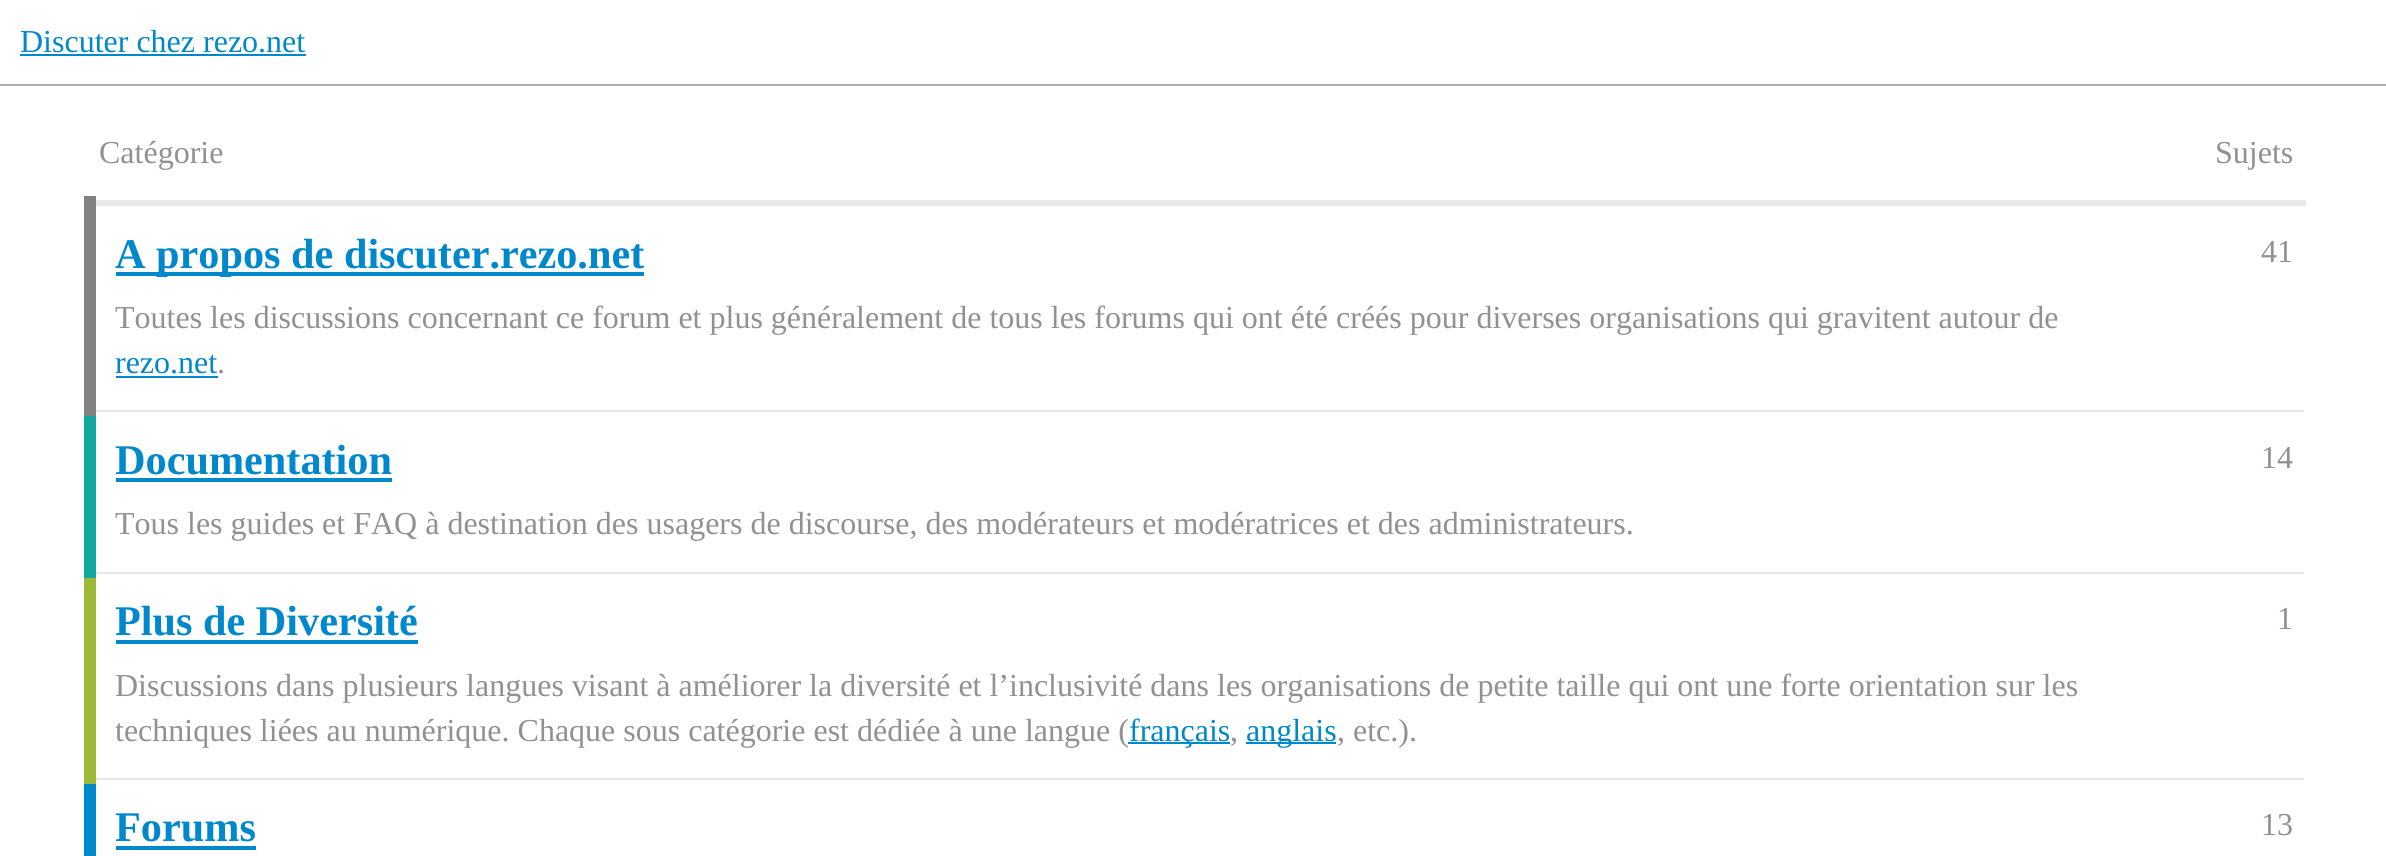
#include <cairo/cairo.h>
#include <math.h>
#include <stddef.h>

typedef struct { double x, y, w, h; unsigned color; } box_t;
static cairo_t *cr;

static void rgb(unsigned color)
{
	cairo_set_source_rgb(cr, (color >> 16) / 255.0, (color >> 8 & 255) / 255.0, (color & 255) / 255.0);
}

int main(void) {
	cairo_surface_t *surface = cairo_image_surface_create(CAIRO_FORMAT_RGB24, 2386, 856);
	cr = cairo_create(surface);
	cairo_font_options_t *options = cairo_font_options_create();
	cairo_font_options_set_hint_metrics(options, CAIRO_HINT_METRICS_OFF);
	cairo_font_options_set_hint_style(options, CAIRO_HINT_STYLE_NONE);
	cairo_set_font_options(cr, options);
	cairo_set_miter_limit(cr, 4);
	rgb(0xffffff);
	cairo_paint(cr);
	{
		static const box_t items[] = {
			{0, 84, 2386, 2, 0xafafaf},
			{20, 54, 286, 2, 0x0088cc},
			{96, 200, 2210, 6, 0xe9e9e9},
			{88, 410, 2216, 2, 0xe9e9e9},
			{84, 196, 12, 220, 0x808281},
			{116, 272, 528, 4, 0x0088cc},
			{116, 376, 102, 2, 0x0088cc},
			{88, 572, 2216, 2, 0xe9e9e9},
			{84, 416, 12, 162, 0x12a89d},
			{116, 478, 276, 4, 0x0088cc},
			{88, 778, 2216, 2, 0xe9e9e9},
			{84, 578, 12, 206, 0x9eb83b},
			{116, 640, 302, 4, 0x0088cc},
			{1128, 742, 102, 2, 0x0088cc},
			{1246, 742, 90, 2, 0x0088cc},
			{84, 784, 12, 72, 0x0088cc},
			{116, 846, 140, 4, 0x0088cc},
		};
		for (size_t i = 0; i < sizeof items / sizeof *items; i++) {
			rgb(items[i].color);
			cairo_rectangle(cr, items[i].x, items[i].y, items[i].w, items[i].h);
			cairo_fill(cr);
		}
	}
	cairo_select_font_face(cr, "Liberation Serif", CAIRO_FONT_SLANT_NORMAL, CAIRO_FONT_WEIGHT_NORMAL);
	cairo_set_font_size(cr, 32);
	cairo_move_to(cr, 20, 52);
	cairo_show_text(cr, "Discuter chez rezo.net");
	rgb(0x919191);
	cairo_move_to(cr, 99, 163);
	cairo_show_text(cr, "Catégorie");
	cairo_move_to(cr, 2215, 163);
	cairo_show_text(cr, "Sujets");
	cairo_select_font_face(cr, "Liberation Serif", CAIRO_FONT_SLANT_NORMAL, CAIRO_FONT_WEIGHT_BOLD);
	cairo_set_font_size(cr, 42.25);
	rgb(0x0088cc);
	cairo_move_to(cr, 115, 268);
	cairo_show_text(cr, "A propos de discuter.rezo.net");
	cairo_select_font_face(cr, "Liberation Serif", CAIRO_FONT_SLANT_NORMAL, CAIRO_FONT_WEIGHT_NORMAL);
	cairo_set_font_size(cr, 32);
	rgb(0x919191);
	cairo_move_to(cr, 115, 328);
	cairo_show_text(cr, "Toutes les discussions concernant ce forum et plus généralement de tous les forums qui ont été créés pour diverses organisations qui gravitent autour de");
	rgb(0x0088cc);
	cairo_move_to(cr, 115, 373);
	cairo_show_text(cr, "rezo.net");
	rgb(0x919191);
	cairo_move_to(cr, 217, 373);
	cairo_show_text(cr, ".");
	cairo_move_to(cr, 2261, 262);
	cairo_show_text(cr, "41");
	cairo_select_font_face(cr, "Liberation Serif", CAIRO_FONT_SLANT_NORMAL, CAIRO_FONT_WEIGHT_BOLD);
	cairo_set_font_size(cr, 42.25);
	rgb(0x0088cc);
	cairo_move_to(cr, 115, 474);
	cairo_show_text(cr, "Documentation");
	cairo_select_font_face(cr, "Liberation Serif", CAIRO_FONT_SLANT_NORMAL, CAIRO_FONT_WEIGHT_NORMAL);
	cairo_set_font_size(cr, 32);
	rgb(0x919191);
	cairo_move_to(cr, 115, 534);
	cairo_show_text(cr, "Tous les guides et FAQ à destination des usagers de discourse, des modérateurs et modératrices et des administrateurs.");
	cairo_move_to(cr, 2261, 468);
	cairo_show_text(cr, "14");
	cairo_select_font_face(cr, "Liberation Serif", CAIRO_FONT_SLANT_NORMAL, CAIRO_FONT_WEIGHT_BOLD);
	cairo_set_font_size(cr, 42.25);
	rgb(0x0088cc);
	cairo_move_to(cr, 115, 635);
	cairo_show_text(cr, "Plus de Diversité");
	cairo_select_font_face(cr, "Liberation Serif", CAIRO_FONT_SLANT_NORMAL, CAIRO_FONT_WEIGHT_NORMAL);
	cairo_set_font_size(cr, 32);
	rgb(0x919191);
	cairo_move_to(cr, 115, 696);
	cairo_show_text(cr, "Discussions dans plusieurs langues visant à améliorer la diversité et l’inclusivité dans les organisations de petite taille qui ont une forte orientation sur les");
	cairo_move_to(cr, 115, 741);
	cairo_show_text(cr, "techniques liées au numérique. Chaque sous catégorie est dédiée à une langue (");
	rgb(0x0088cc);
	cairo_move_to(cr, 1129, 741);
	cairo_show_text(cr, "français");
	rgb(0x919191);
	cairo_move_to(cr, 1230, 741);
	cairo_show_text(cr, ",");
	rgb(0x0088cc);
	cairo_move_to(cr, 1246, 741);
	cairo_show_text(cr, "anglais");
	rgb(0x919191);
	cairo_move_to(cr, 1337, 741);
	cairo_show_text(cr, ", etc.).");
	cairo_move_to(cr, 2277, 629);
	cairo_show_text(cr, "1");
	cairo_select_font_face(cr, "Liberation Serif", CAIRO_FONT_SLANT_NORMAL, CAIRO_FONT_WEIGHT_BOLD);
	cairo_set_font_size(cr, 42.25);
	rgb(0x0088cc);
	cairo_move_to(cr, 115, 841);
	cairo_show_text(cr, "Forums");
	cairo_select_font_face(cr, "Liberation Serif", CAIRO_FONT_SLANT_NORMAL, CAIRO_FONT_WEIGHT_NORMAL);
	cairo_set_font_size(cr, 32);
	rgb(0x919191);
	cairo_move_to(cr, 2261, 835);
	cairo_show_text(cr, "13");
	cairo_surface_write_to_png(surface, "page.png");
	cairo_font_options_destroy(options);
	cairo_destroy(cr);
	cairo_surface_destroy(surface);
	return 0;
}
